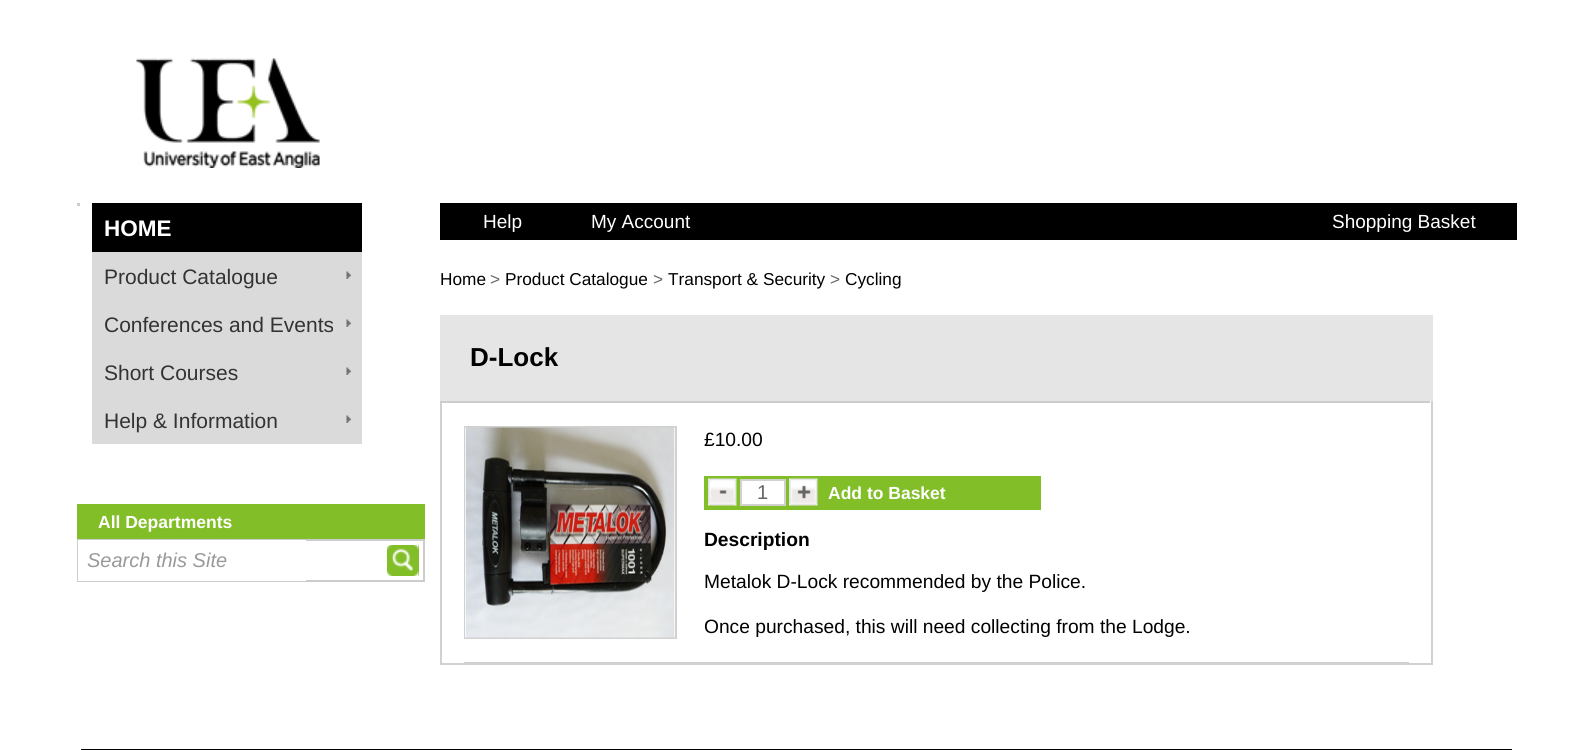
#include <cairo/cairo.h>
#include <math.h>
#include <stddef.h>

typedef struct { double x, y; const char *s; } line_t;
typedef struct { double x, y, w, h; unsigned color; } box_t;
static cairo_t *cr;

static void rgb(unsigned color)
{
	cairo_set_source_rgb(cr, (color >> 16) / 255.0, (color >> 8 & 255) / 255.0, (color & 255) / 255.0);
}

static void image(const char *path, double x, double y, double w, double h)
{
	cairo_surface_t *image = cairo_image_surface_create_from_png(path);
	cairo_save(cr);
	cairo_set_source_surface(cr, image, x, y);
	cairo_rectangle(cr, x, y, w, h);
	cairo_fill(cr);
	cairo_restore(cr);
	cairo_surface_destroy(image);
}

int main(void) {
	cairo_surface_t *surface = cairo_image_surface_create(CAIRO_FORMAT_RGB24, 1593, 750);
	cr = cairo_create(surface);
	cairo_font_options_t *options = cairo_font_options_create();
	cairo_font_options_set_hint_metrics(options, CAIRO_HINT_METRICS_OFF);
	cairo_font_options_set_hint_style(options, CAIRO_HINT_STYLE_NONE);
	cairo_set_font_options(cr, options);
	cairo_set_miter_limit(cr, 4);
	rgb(0xffffff);
	cairo_paint(cr);
	image("img/1.png", 136, 58, 184, 110);
	{
		static const box_t items[] = {
			{77, 203, 3, 3, 0xcccccc},
			{92, 203, 270, 49, 0x000000},
			{92, 252, 270, 192, 0xdadada},
		};
		for (size_t i = 0; i < sizeof items / sizeof *items; i++) {
			rgb(items[i].color);
			cairo_rectangle(cr, items[i].x, items[i].y, items[i].w, items[i].h);
			cairo_fill(cr);
		}
	}
	image("img/2.png", 346, 271, 5, 8);
	image("img/2.png", 346, 319, 5, 8);
	image("img/2.png", 346, 367, 5, 8);
	image("img/2.png", 346, 415, 5, 8);
	rgb(0x82be28);
	cairo_rectangle(cr, 77, 504, 348, 35);
	cairo_fill(cr);
	cairo_rectangle(cr, 78, 540, 346, 41);
	rgb(0xcccccc);
	cairo_stroke(cr);
	rgb(0xffffff);
	cairo_rectangle(cr, 78, 540, 228, 41);
	cairo_fill(cr);
	rgb(0x82be28);
	cairo_rectangle(cr, 387, 545, 32, 31);
	cairo_fill(cr);
	image("img/3.png", 387, 545, 32, 31);
	rgb(0x000000);
	cairo_rectangle(cr, 440, 203, 1077, 37);
	cairo_fill(cr);
	cairo_rectangle(cr, 441, 316, 991, 348);
	rgb(0xd1d1d1);
	cairo_stroke(cr);
	rgb(0xe5e5e5);
	cairo_rectangle(cr, 440, 315, 993, 86);
	cairo_fill(cr);
	rgb(0xcccccc);
	cairo_rectangle(cr, 440, 401, 990, 2);
	cairo_fill(cr);
	cairo_rectangle(cr, 465, 427, 211, 211);
	rgb(0xd1d1d1);
	cairo_stroke(cr);
	image("img/4.png", 465, 427, 210, 211);
	rgb(0x82be28);
	cairo_rectangle(cr, 704, 476, 337, 34);
	cairo_fill(cr);
	image("img/5.png", 708, 478, 29, 28);
	rgb(0xffffff);
	cairo_rectangle(cr, 741, 480, 44, 25);
	cairo_fill_preserve(cr);
	rgb(0xd1d1d1);
	cairo_stroke(cr);
	image("img/6.png", 789, 478, 29, 28);
	cairo_rectangle(cr, 464, 662, 945, 1);
	cairo_fill(cr);
	rgb(0x000000);
	cairo_rectangle(cr, 81, 749, 1431, 1);
	cairo_fill(cr);
	cairo_select_font_face(cr, "Liberation Sans", CAIRO_FONT_SLANT_NORMAL, CAIRO_FONT_WEIGHT_BOLD);
	cairo_set_font_size(cr, 22.5);
	rgb(0xffffff);
	cairo_move_to(cr, 104, 236);
	cairo_show_text(cr, "HOME");
	cairo_select_font_face(cr, "Liberation Sans", CAIRO_FONT_SLANT_NORMAL, CAIRO_FONT_WEIGHT_NORMAL);
	cairo_set_font_size(cr, 21);
	rgb(0x333333);
	{
		static const line_t items[] = {
			{104, 284, "Product Catalogue"},
			{104, 332, "Conferences and Events"},
			{104, 380, "Short Courses"},
			{104, 428, "Help & Information"},
		};
		for (size_t i = 0; i < sizeof items / sizeof *items; i++) {
			cairo_move_to(cr, items[i].x, items[i].y);
			cairo_show_text(cr, items[i].s);
		}
	}
	cairo_select_font_face(cr, "Liberation Sans", CAIRO_FONT_SLANT_NORMAL, CAIRO_FONT_WEIGHT_BOLD);
	cairo_set_font_size(cr, 17.5);
	rgb(0xffffff);
	cairo_move_to(cr, 98, 528);
	cairo_show_text(cr, "All Departments");
	cairo_select_font_face(cr, "Liberation Sans", CAIRO_FONT_SLANT_ITALIC, CAIRO_FONT_WEIGHT_NORMAL);
	cairo_set_font_size(cr, 20);
	rgb(0x999999);
	cairo_move_to(cr, 87, 567);
	cairo_show_text(cr, "Search this Site");
	cairo_select_font_face(cr, "Liberation Sans", CAIRO_FONT_SLANT_NORMAL, CAIRO_FONT_WEIGHT_NORMAL);
	cairo_set_font_size(cr, 19);
	rgb(0xffffff);
	{
		static const line_t items[] = {
			{483, 228, "Help"},
			{591, 228, "My Account"},
			{1332, 228, "Shopping Basket"},
		};
		for (size_t i = 0; i < sizeof items / sizeof *items; i++) {
			cairo_move_to(cr, items[i].x, items[i].y);
			cairo_show_text(cr, items[i].s);
		}
	}
	cairo_set_font_size(cr, 17.25);
	rgb(0x000000);
	cairo_move_to(cr, 440, 285);
	cairo_show_text(cr, "Home");
	rgb(0x666666);
	cairo_move_to(cr, 490, 285);
	cairo_show_text(cr, ">");
	rgb(0x000000);
	cairo_move_to(cr, 505, 285);
	cairo_show_text(cr, "Product Catalogue");
	rgb(0x666666);
	cairo_move_to(cr, 653, 285);
	cairo_show_text(cr, ">");
	rgb(0x000000);
	cairo_move_to(cr, 668, 285);
	cairo_show_text(cr, "Transport & Security");
	rgb(0x666666);
	cairo_move_to(cr, 830, 285);
	cairo_show_text(cr, ">");
	rgb(0x000000);
	cairo_move_to(cr, 845, 285);
	cairo_show_text(cr, "Cycling");
	cairo_select_font_face(cr, "Liberation Sans", CAIRO_FONT_SLANT_NORMAL, CAIRO_FONT_WEIGHT_BOLD);
	cairo_set_font_size(cr, 26);
	cairo_move_to(cr, 470, 366);
	cairo_show_text(cr, "D-Lock");
	cairo_select_font_face(cr, "Liberation Sans", CAIRO_FONT_SLANT_NORMAL, CAIRO_FONT_WEIGHT_NORMAL);
	cairo_set_font_size(cr, 19.2);
	cairo_move_to(cr, 704, 446);
	cairo_show_text(cr, "£10.00");
	cairo_set_font_size(cr, 20);
	rgb(0x666666);
	cairo_move_to(cr, 757, 499);
	cairo_show_text(cr, "1");
	cairo_select_font_face(cr, "Liberation Sans", CAIRO_FONT_SLANT_NORMAL, CAIRO_FONT_WEIGHT_BOLD);
	cairo_set_font_size(cr, 17.5);
	rgb(0xffffff);
	cairo_move_to(cr, 828, 499);
	cairo_show_text(cr, "Add to Basket");
	cairo_set_font_size(cr, 19.2);
	rgb(0x000000);
	cairo_move_to(cr, 704, 546);
	cairo_show_text(cr, "Description");
	cairo_select_font_face(cr, "Liberation Sans", CAIRO_FONT_SLANT_NORMAL, CAIRO_FONT_WEIGHT_NORMAL);
	cairo_move_to(cr, 704, 588);
	cairo_show_text(cr, "Metalok D-Lock recommended by the Police.");
	cairo_move_to(cr, 704, 633);
	cairo_show_text(cr, "Once purchased, this will need collecting from the Lodge.");
	cairo_surface_write_to_png(surface, "page.png");
	cairo_font_options_destroy(options);
	cairo_destroy(cr);
	cairo_surface_destroy(surface);
	return 0;
}
